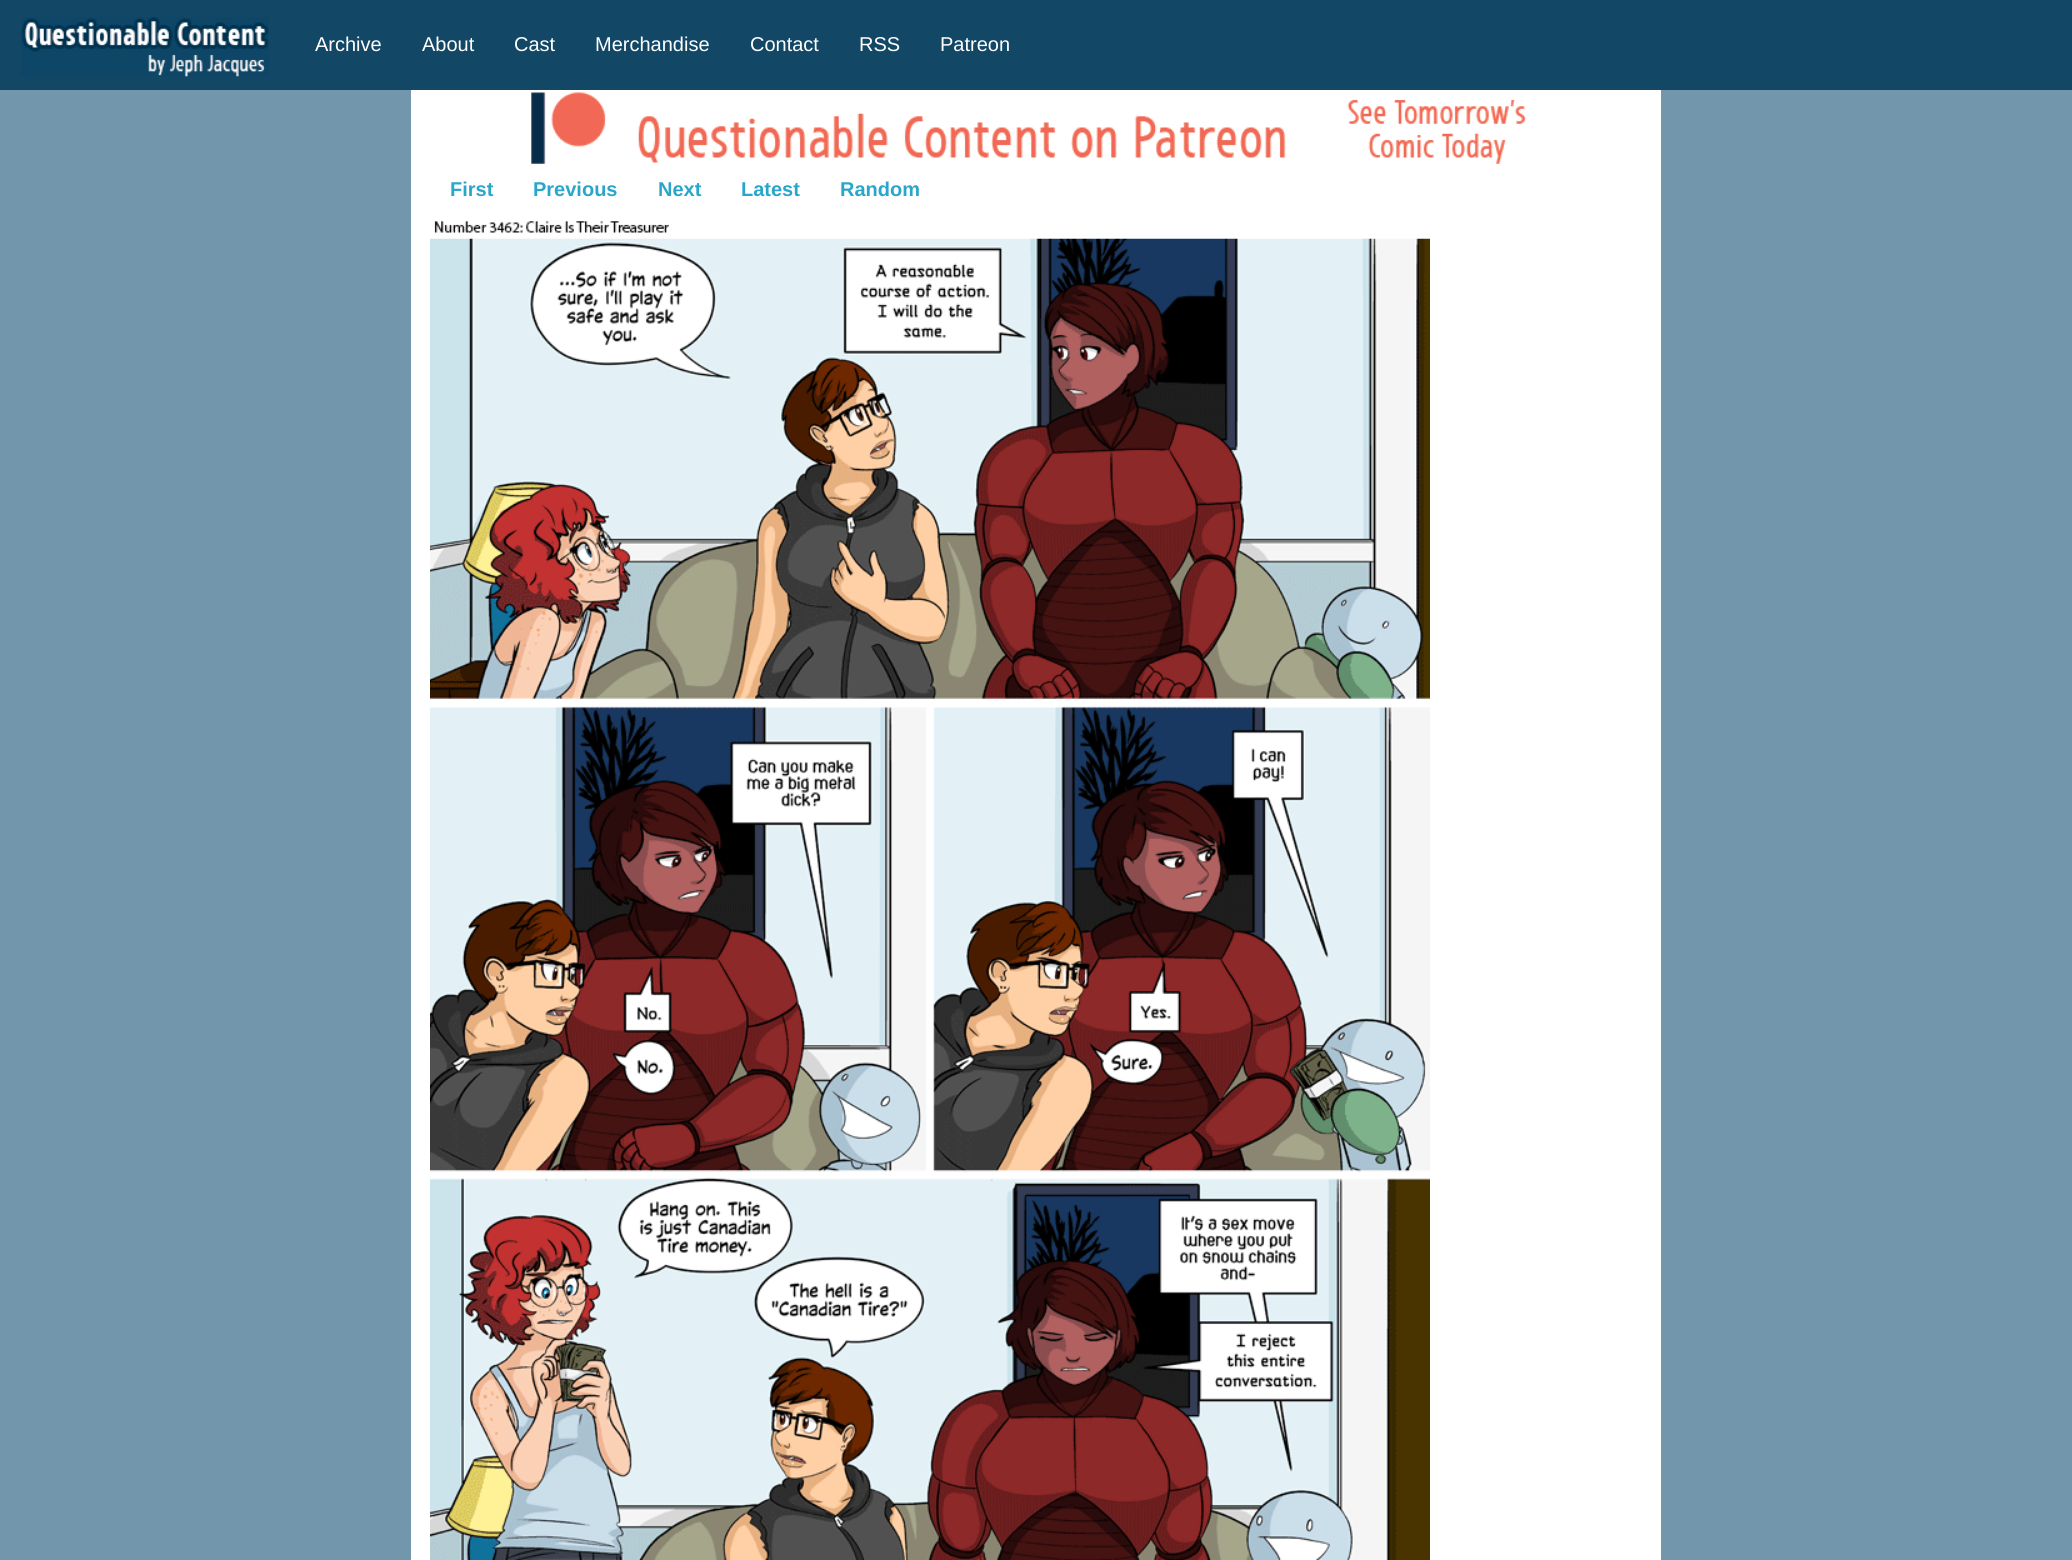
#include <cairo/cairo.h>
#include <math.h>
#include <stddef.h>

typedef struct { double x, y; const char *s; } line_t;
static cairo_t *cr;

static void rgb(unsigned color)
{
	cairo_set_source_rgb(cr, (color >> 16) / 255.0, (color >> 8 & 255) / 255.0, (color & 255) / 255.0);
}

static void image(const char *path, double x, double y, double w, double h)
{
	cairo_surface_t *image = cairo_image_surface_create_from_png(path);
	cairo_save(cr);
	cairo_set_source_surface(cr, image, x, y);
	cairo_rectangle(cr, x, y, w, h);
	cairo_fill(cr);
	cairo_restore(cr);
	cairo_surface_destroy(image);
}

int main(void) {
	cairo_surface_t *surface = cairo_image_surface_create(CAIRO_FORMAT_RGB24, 2072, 1560);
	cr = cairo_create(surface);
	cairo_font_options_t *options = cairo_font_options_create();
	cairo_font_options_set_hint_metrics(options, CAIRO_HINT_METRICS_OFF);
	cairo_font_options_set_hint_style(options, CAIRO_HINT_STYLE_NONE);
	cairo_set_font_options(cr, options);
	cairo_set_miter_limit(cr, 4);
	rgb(0x7297ac);
	cairo_paint(cr);
	rgb(0x124766);
	cairo_rectangle(cr, 0, 0, 2072, 90);
	cairo_fill(cr);
	image("img/1.png", 21, 17, 248, 60);
	rgb(0xffffff);
	cairo_rectangle(cr, 411, 90, 1250, 1470);
	cairo_fill(cr);
	image("img/2.png", 531, 92, 995, 72);
	image("img/3.png", 430, 221, 1000, 1339);
	cairo_select_font_face(cr, "Liberation Sans", CAIRO_FONT_SLANT_NORMAL, CAIRO_FONT_WEIGHT_NORMAL);
	cairo_set_font_size(cr, 20);
	{
		static const line_t items[] = {
			{315, 51, "Archive"},
			{422, 51, "About"},
			{514, 51, "Cast"},
			{595, 51, "Merchandise"},
			{750, 51, "Contact"},
			{859, 51, "RSS"},
			{940, 51, "Patreon"},
		};
		for (size_t i = 0; i < sizeof items / sizeof *items; i++) {
			cairo_move_to(cr, items[i].x, items[i].y);
			cairo_show_text(cr, items[i].s);
		}
	}
	cairo_select_font_face(cr, "Liberation Sans", CAIRO_FONT_SLANT_NORMAL, CAIRO_FONT_WEIGHT_BOLD);
	rgb(0x2ba6cb);
	{
		static const line_t items[] = {
			{450, 196, "First"},
			{533, 196, "Previous"},
			{658, 196, "Next"},
			{741, 196, "Latest"},
			{840, 196, "Random"},
		};
		for (size_t i = 0; i < sizeof items / sizeof *items; i++) {
			cairo_move_to(cr, items[i].x, items[i].y);
			cairo_show_text(cr, items[i].s);
		}
	}
	cairo_surface_write_to_png(surface, "page.png");
	cairo_font_options_destroy(options);
	cairo_destroy(cr);
	cairo_surface_destroy(surface);
	return 0;
}
